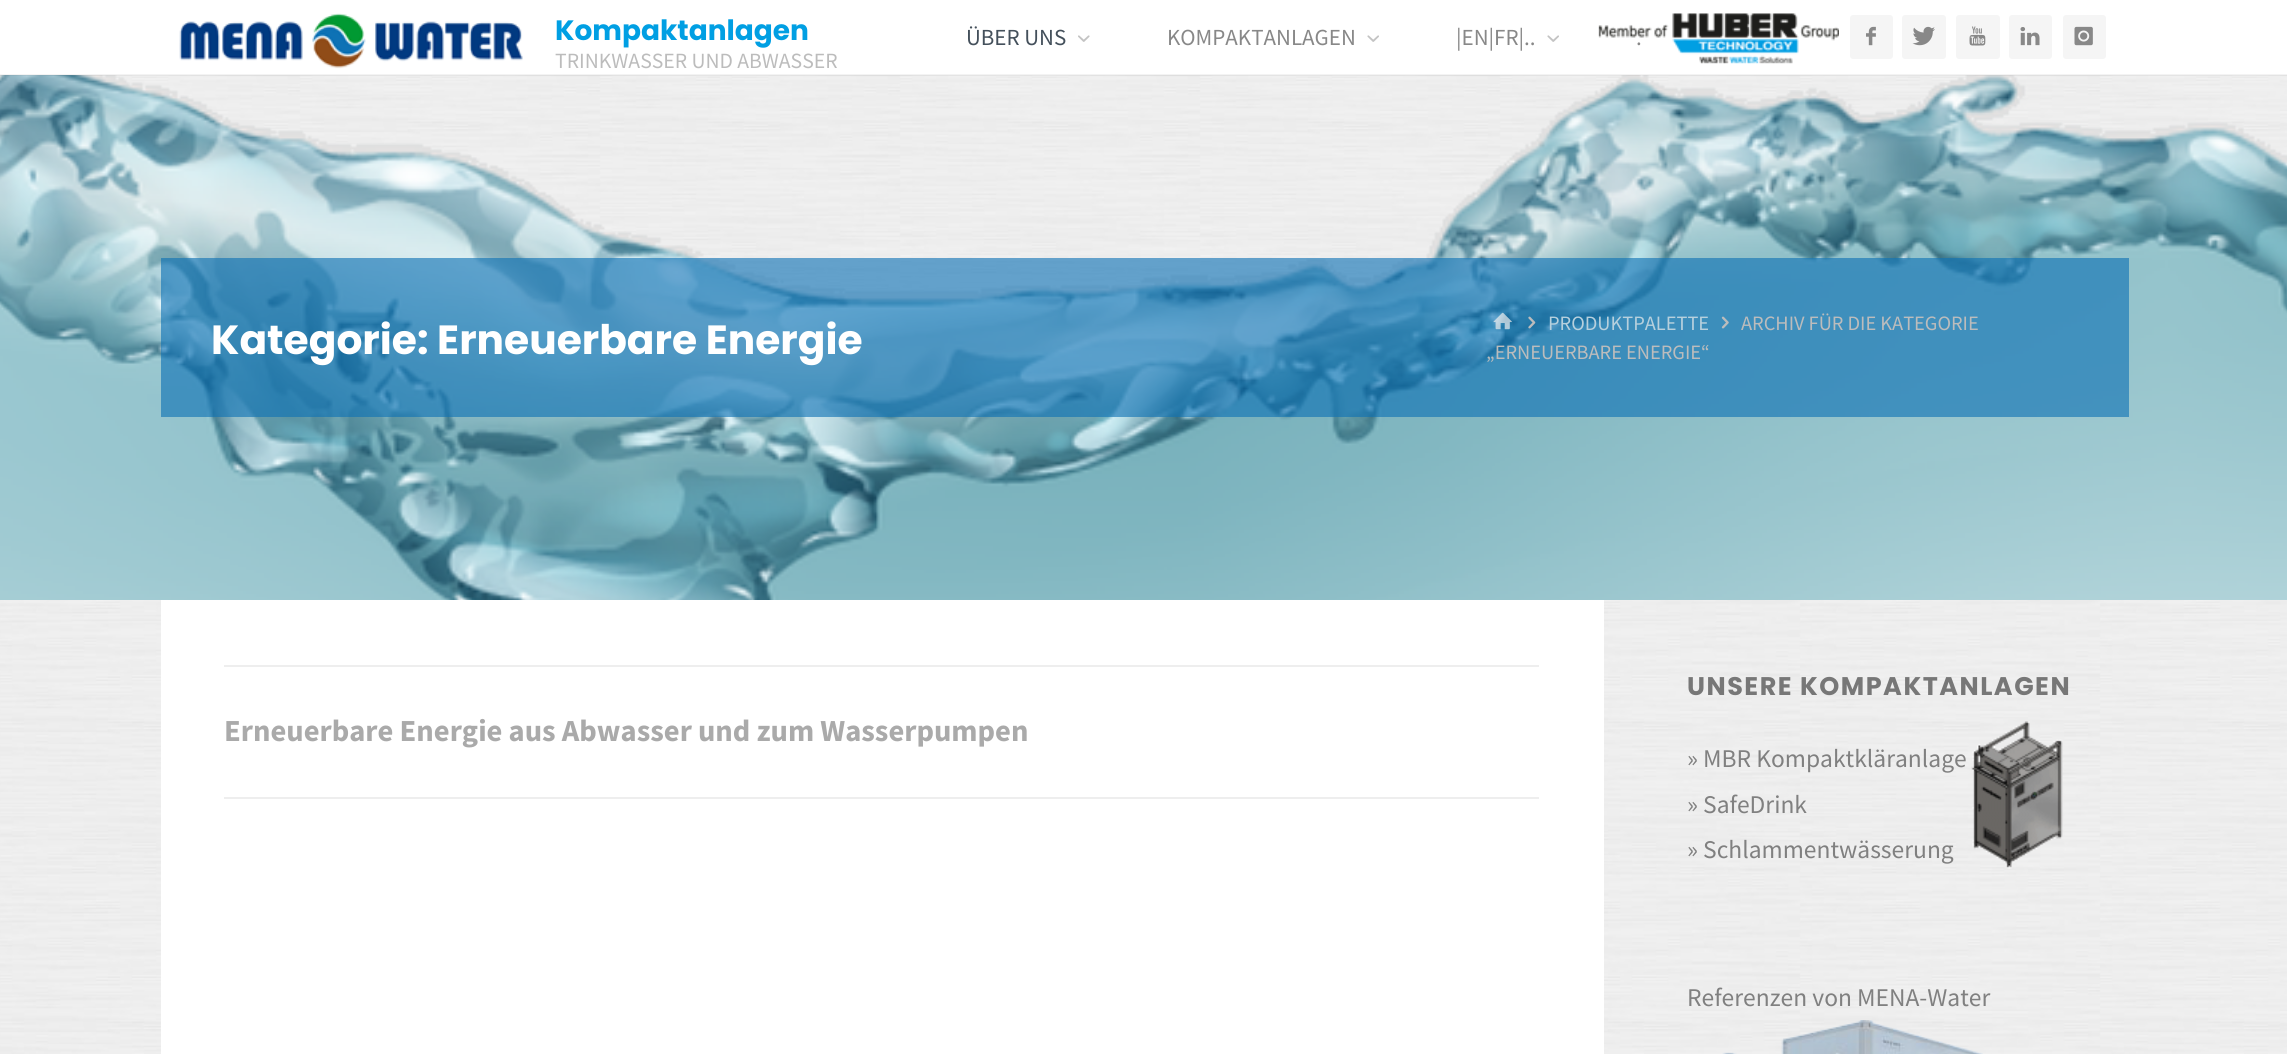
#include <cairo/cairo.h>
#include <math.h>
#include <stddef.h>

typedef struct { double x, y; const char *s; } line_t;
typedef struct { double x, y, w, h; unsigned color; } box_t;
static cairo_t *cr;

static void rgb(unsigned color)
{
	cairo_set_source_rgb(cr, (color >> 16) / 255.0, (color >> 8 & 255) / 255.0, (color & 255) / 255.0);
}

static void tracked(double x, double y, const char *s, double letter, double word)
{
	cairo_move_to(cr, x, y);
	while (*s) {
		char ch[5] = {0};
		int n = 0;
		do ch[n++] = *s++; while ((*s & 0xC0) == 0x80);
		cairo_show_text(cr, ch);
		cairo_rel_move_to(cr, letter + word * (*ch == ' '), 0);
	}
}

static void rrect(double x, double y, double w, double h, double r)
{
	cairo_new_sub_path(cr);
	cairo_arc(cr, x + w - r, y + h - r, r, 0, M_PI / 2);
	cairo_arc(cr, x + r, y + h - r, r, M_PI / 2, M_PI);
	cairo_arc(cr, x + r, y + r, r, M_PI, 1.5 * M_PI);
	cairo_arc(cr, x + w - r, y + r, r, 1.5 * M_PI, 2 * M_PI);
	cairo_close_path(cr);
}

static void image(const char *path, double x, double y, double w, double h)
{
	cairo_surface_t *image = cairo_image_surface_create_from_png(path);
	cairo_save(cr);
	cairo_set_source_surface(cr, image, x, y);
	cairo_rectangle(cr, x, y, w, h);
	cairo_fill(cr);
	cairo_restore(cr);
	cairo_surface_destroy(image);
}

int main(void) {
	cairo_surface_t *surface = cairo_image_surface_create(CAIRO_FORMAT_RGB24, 2287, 1054);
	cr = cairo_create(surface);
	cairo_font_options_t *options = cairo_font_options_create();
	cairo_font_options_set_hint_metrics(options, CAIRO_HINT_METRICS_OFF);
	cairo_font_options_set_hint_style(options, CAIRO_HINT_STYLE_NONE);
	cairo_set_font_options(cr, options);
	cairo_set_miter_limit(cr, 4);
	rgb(0xffffff);
	cairo_paint(cr);
	image("img/1.png", 0, 75, 2287, 979);
	image("img/11.png", 0, 75, 2287, 525);
	cairo_set_source_rgba(cr, 0, 0, 0, 0.05);
	cairo_rectangle(cr, 0, 74, 2287, 2);
	cairo_fill(cr);
	image("img/2.png", 179, 13, 344, 56);
	image("img/3.png", 1078, 35, 12, 7);
	image("img/4.png", 1367, 35, 12, 7);
	image("img/4.png", 1547, 35, 12, 7);
	image("img/5.png", 1598, 13, 241, 51);
	rgb(0xf5f5f5);
	rrect(1850, 15, 43, 44, 3);
	cairo_fill(cr);
	image("img/6.png", 1866, 26, 10, 20);
	rrect(1902, 15, 44, 44, 3);
	cairo_fill(cr);
	image("img/7.png", 1912, 26, 23, 20);
	rrect(1956, 15, 44, 44, 3);
	cairo_fill(cr);
	image("img/8.png", 1969, 26, 17, 20);
	rrect(2009, 15, 43, 44, 3);
	cairo_fill(cr);
	image("img/9.png", 2020, 27, 20, 19);
	rrect(2063, 15, 43, 44, 3);
	cairo_fill(cr);
	image("img/10.png", 2074, 26, 19, 20);
	cairo_set_source_rgba(cr, 0.055, 0.447, 0.71, 0.62);
	cairo_rectangle(cr, 161, 258, 1968, 159);
	cairo_fill(cr);
	image("img/12.png", 1493, 312, 19, 18);
	image("img/13.png", 1528, 316, 8, 13);
	image("img/14.png", 1721, 316, 8, 13);
	{
		static const box_t items[] = {
			{161, 600, 1443, 454, 0xffffff},
			{224, 665, 1315, 2, 0xeeeeee},
			{224, 797, 1315, 2, 0xeeeeee},
		};
		for (size_t i = 0; i < sizeof items / sizeof *items; i++) {
			rgb(items[i].color);
			cairo_rectangle(cr, items[i].x, items[i].y, items[i].w, items[i].h);
			cairo_fill(cr);
		}
	}
	image("img/15.png", 1971, 721, 92, 148);
	image("img/16.png", 1722, 1020, 261, 34);
	cairo_select_font_face(cr, "Poppins", CAIRO_FONT_SLANT_NORMAL, CAIRO_FONT_WEIGHT_BOLD);
	cairo_set_font_size(cr, 28);
	rgb(0x009fe3);
	cairo_move_to(cr, 555, 40);
	cairo_show_text(cr, "Kompaktanlagen");
	cairo_select_font_face(cr, "Source Sans Pro", CAIRO_FONT_SLANT_NORMAL, CAIRO_FONT_WEIGHT_NORMAL);
	cairo_set_font_size(cr, 21.7);
	rgb(0xbcbcbc);
	cairo_move_to(cr, 555, 68);
	cairo_show_text(cr, "TRINKWASSER UND ABWASSER");
	cairo_set_font_size(cr, 23);
	rgb(0x44505b);
	cairo_move_to(cr, 966, 45);
	cairo_show_text(cr, "ÜBER UNS");
	rgb(0x888888);
	{
		static const line_t items[] = {
			{1167, 45, "KOMPAKTANLAGEN"},
			{1456, 45, "|EN|FR|.."},
			{1636, 45, "."},
		};
		for (size_t i = 0; i < sizeof items / sizeof *items; i++) {
			cairo_move_to(cr, items[i].x, items[i].y);
			cairo_show_text(cr, items[i].s);
		}
	}
	cairo_select_font_face(cr, "Poppins", CAIRO_FONT_SLANT_NORMAL, CAIRO_FONT_WEIGHT_BOLD);
	cairo_set_font_size(cr, 40.75);
	rgb(0xffffff);
	cairo_move_to(cr, 211, 354);
	cairo_show_text(cr, "Kategorie: Erneuerbare Energie");
	cairo_select_font_face(cr, "Source Sans Pro", CAIRO_FONT_SLANT_NORMAL, CAIRO_FONT_WEIGHT_NORMAL);
	cairo_set_font_size(cr, 20.4);
	rgb(0xb7d0dd);
	cairo_move_to(cr, 1548, 330);
	cairo_show_text(cr, "PRODUKTPALETTE");
	rgb(0xbcbcbc);
	cairo_move_to(cr, 1741, 330);
	cairo_show_text(cr, "ARCHIV FÜR DIE KATEGORIE");
	cairo_move_to(cr, 1486, 359);
	cairo_show_text(cr, "„ERNEUERBARE ENERGIE“");
	cairo_select_font_face(cr, "Source Sans Pro", CAIRO_FONT_SLANT_NORMAL, CAIRO_FONT_WEIGHT_BOLD);
	cairo_set_font_size(cr, 30.6);
	rgb(0xaaaaaa);
	cairo_move_to(cr, 224, 741);
	cairo_show_text(cr, "Erneuerbare Energie aus Abwasser und zum Wasserpumpen");
	cairo_select_font_face(cr, "Poppins", CAIRO_FONT_SLANT_NORMAL, CAIRO_FONT_WEIGHT_BOLD);
	cairo_set_font_size(cr, 25.5);
	rgb(0x777777);
	tracked(1687, 695, "UNSERE KOMPAKTANLAGEN", 1.5, 0);
	cairo_select_font_face(cr, "Source Sans Pro", CAIRO_FONT_SLANT_NORMAL, CAIRO_FONT_WEIGHT_NORMAL);
	rgb(0x808080);
	{
		static const line_t items[] = {
			{1687, 767, "» MBR Kompaktkläranlage"},
			{1687, 813, "» SafeDrink"},
			{1687, 858, "» Schlammentwässerung"},
			{1687, 1006, "Referenzen von MENA-Water"},
		};
		for (size_t i = 0; i < sizeof items / sizeof *items; i++) {
			cairo_move_to(cr, items[i].x, items[i].y);
			cairo_show_text(cr, items[i].s);
		}
	}
	cairo_surface_write_to_png(surface, "page.png");
	cairo_font_options_destroy(options);
	cairo_destroy(cr);
	cairo_surface_destroy(surface);
	return 0;
}
